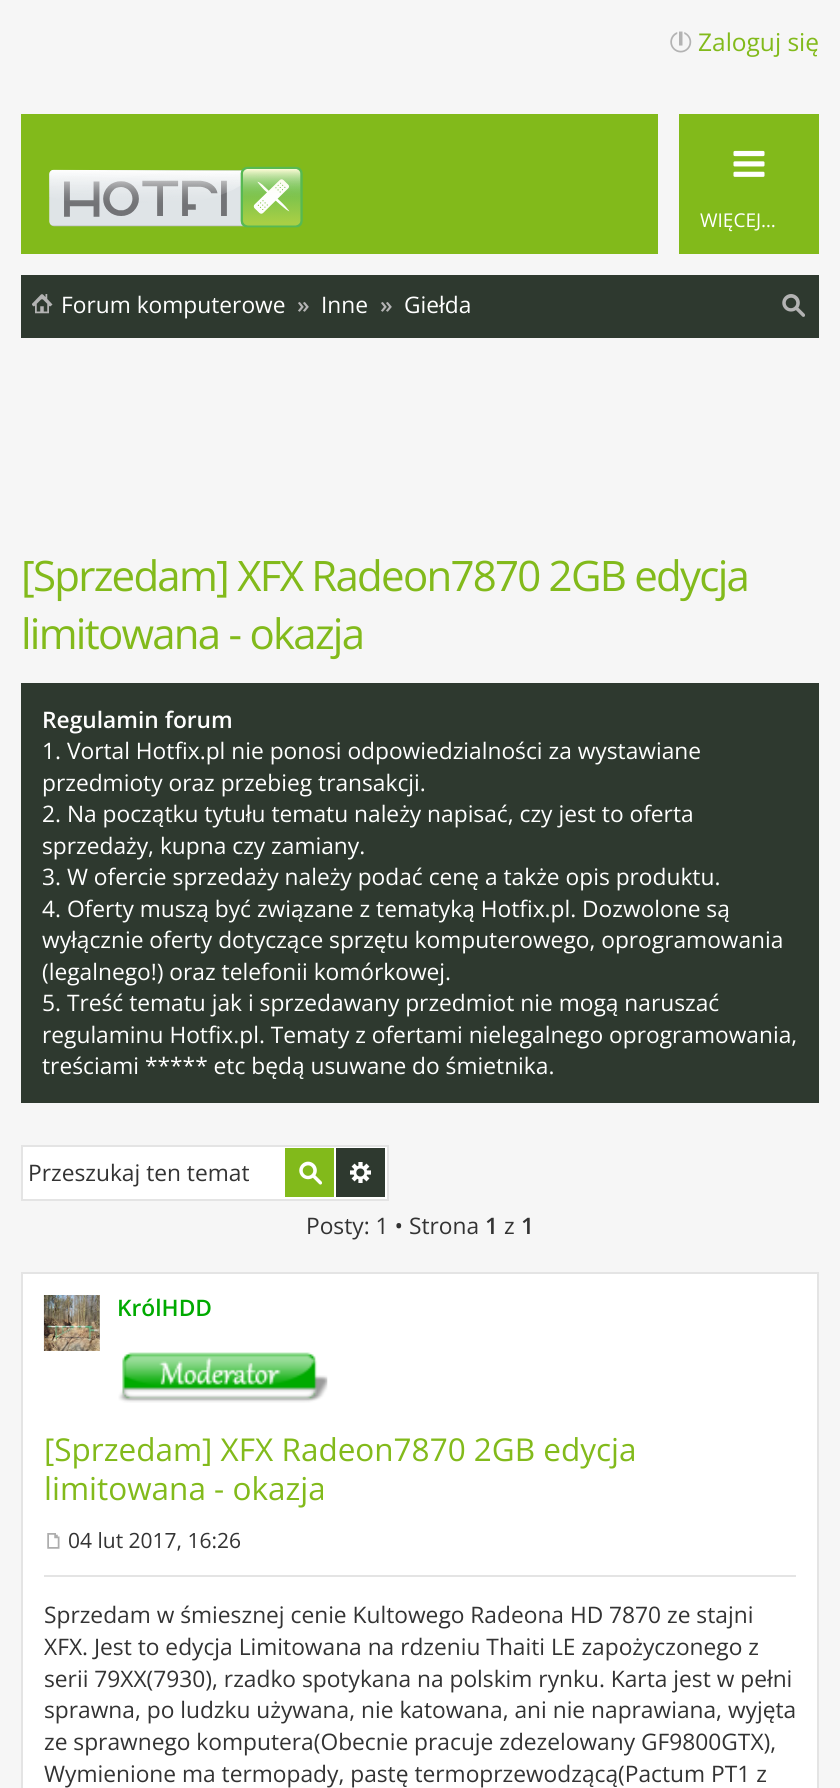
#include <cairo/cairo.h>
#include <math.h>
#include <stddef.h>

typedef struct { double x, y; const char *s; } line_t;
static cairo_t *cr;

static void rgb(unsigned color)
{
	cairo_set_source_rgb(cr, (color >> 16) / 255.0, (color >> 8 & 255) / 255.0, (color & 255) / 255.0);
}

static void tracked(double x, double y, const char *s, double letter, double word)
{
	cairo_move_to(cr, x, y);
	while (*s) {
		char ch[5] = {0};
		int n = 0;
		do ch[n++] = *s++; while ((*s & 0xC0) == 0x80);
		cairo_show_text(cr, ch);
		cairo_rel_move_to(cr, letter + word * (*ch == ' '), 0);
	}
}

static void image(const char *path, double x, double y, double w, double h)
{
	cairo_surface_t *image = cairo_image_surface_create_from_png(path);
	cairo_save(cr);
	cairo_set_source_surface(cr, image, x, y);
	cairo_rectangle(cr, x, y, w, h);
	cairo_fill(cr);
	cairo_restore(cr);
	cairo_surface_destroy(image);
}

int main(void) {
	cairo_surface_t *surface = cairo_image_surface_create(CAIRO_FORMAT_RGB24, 840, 1788);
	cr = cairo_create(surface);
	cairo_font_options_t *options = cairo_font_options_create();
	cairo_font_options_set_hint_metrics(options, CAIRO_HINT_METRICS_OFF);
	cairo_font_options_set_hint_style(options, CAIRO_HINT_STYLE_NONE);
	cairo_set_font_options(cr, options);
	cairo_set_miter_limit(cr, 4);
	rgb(0xf6f6f6);
	cairo_paint(cr);
	image("img/1.png", 670, 31, 22, 22);
	rgb(0x82ba1b);
	cairo_rectangle(cr, 21, 114, 798, 140);
	cairo_fill(cr);
	image("img/2.png", 49, 166, 254, 62);
	rgb(0xf6f6f6);
	cairo_rectangle(cr, 658, 114, 21, 140);
	cairo_fill(cr);
	image("img/3.png", 733, 150, 32, 27);
	rgb(0x2e392f);
	cairo_rectangle(cr, 21, 275, 798, 63);
	cairo_fill(cr);
	image("img/4.png", 32, 294, 21, 20);
	image("img/5.png", 782, 294, 23, 23);
	cairo_rectangle(cr, 21, 683, 798, 420);
	cairo_fill(cr);
	rgb(0xffffff);
	cairo_rectangle(cr, 22, 1146, 366, 54);
	cairo_fill_preserve(cr);
	rgb(0xe4e4e4);
	cairo_stroke(cr);
	rgb(0x82ba1b);
	cairo_rectangle(cr, 285, 1148, 49, 49);
	cairo_fill(cr);
	image("img/6.png", 299, 1161, 23, 24);
	rgb(0x2e392f);
	cairo_rectangle(cr, 336, 1148, 49, 49);
	cairo_fill(cr);
	image("img/7.png", 350, 1162, 21, 21);
	rgb(0xffffff);
	cairo_rectangle(cr, 22, 1273, 796, 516);
	cairo_fill_preserve(cr);
	rgb(0xe4e4e4);
	cairo_stroke(cr);
	image("img/8.png", 43, 1295, 57, 56);
	image("img/9.png", 118, 1352, 210, 51);
	image("img/10.png", 47, 1533, 13, 16);
	cairo_rectangle(cr, 44, 1575, 752, 2);
	cairo_fill(cr);
	cairo_select_font_face(cr, "Open Sans", CAIRO_FONT_SLANT_NORMAL, CAIRO_FONT_WEIGHT_NORMAL);
	cairo_set_font_size(cr, 24.5);
	rgb(0x82ba1b);
	cairo_move_to(cr, 698, 51);
	cairo_show_text(cr, "Zaloguj się");
	cairo_set_font_size(cr, 19);
	rgb(0xffffff);
	cairo_move_to(cr, 700, 227);
	cairo_show_text(cr, "WIĘCEJ…");
	cairo_set_font_size(cr, 22.75);
	cairo_move_to(cr, 61, 313);
	cairo_show_text(cr, "Forum komputerowe");
	cairo_select_font_face(cr, "Open Sans SemiBold", CAIRO_FONT_SLANT_NORMAL, CAIRO_FONT_WEIGHT_NORMAL);
	rgb(0xb4b4b4);
	cairo_move_to(cr, 297, 313);
	cairo_show_text(cr, "»");
	cairo_select_font_face(cr, "Open Sans", CAIRO_FONT_SLANT_NORMAL, CAIRO_FONT_WEIGHT_NORMAL);
	rgb(0xffffff);
	cairo_move_to(cr, 321, 313);
	cairo_show_text(cr, "Inne");
	cairo_select_font_face(cr, "Open Sans SemiBold", CAIRO_FONT_SLANT_NORMAL, CAIRO_FONT_WEIGHT_NORMAL);
	rgb(0xb4b4b4);
	cairo_move_to(cr, 380, 313);
	cairo_show_text(cr, "»");
	cairo_select_font_face(cr, "Open Sans", CAIRO_FONT_SLANT_NORMAL, CAIRO_FONT_WEIGHT_NORMAL);
	rgb(0xffffff);
	cairo_move_to(cr, 404, 313);
	cairo_show_text(cr, "Giełda");
	cairo_set_font_size(cr, 42);
	rgb(0x82ba1b);
	tracked(21, 591, "[Sprzedam] XFX Radeon7870 2GB edycja", -1.75, 0);
	tracked(21, 649, "limitowana - okazja", -1.75, 0);
	cairo_select_font_face(cr, "Open Sans SemiBold", CAIRO_FONT_SLANT_NORMAL, CAIRO_FONT_WEIGHT_NORMAL);
	cairo_set_font_size(cr, 22.75);
	rgb(0xffffff);
	cairo_move_to(cr, 42, 728);
	cairo_show_text(cr, "Regulamin forum");
	cairo_select_font_face(cr, "Open Sans", CAIRO_FONT_SLANT_NORMAL, CAIRO_FONT_WEIGHT_NORMAL);
	{
		static const line_t items[] = {
			{42, 759, "1. Vortal Hotfix.pl nie ponosi odpowiedzialności za wystawiane"},
			{42, 791, "przedmioty oraz przebieg transakcji."},
			{42, 822, "2. Na początku tytułu tematu należy napisać, czy jest to oferta"},
			{42, 854, "sprzedaży, kupna czy zamiany."},
			{42, 885, "3. W ofercie sprzedaży należy podać cenę a także opis produktu."},
			{42, 917, "4. Oferty muszą być związane z tematyką Hotfix.pl. Dozwolone są"},
			{42, 948, "wyłącznie oferty dotyczące sprzętu komputerowego, oprogramowania"},
			{42, 980, "(legalnego!) oraz telefonii komórkowej."},
			{42, 1011, "5. Treść tematu jak i sprzedawany przedmiot nie mogą naruszać"},
			{42, 1043, "regulaminu Hotfix.pl. Tematy z ofertami nielegalnego oprogramowania,"},
			{42, 1074, "treściami ***** etc będą usuwane do śmietnika."},
		};
		for (size_t i = 0; i < sizeof items / sizeof *items; i++) {
			cairo_move_to(cr, items[i].x, items[i].y);
			cairo_show_text(cr, items[i].s);
		}
	}
	rgb(0x333333);
	cairo_move_to(cr, 28, 1181);
	cairo_show_text(cr, "Przeszukaj ten temat");
	cairo_move_to(cr, 306, 1234);
	cairo_show_text(cr, "Posty: 1 • Strona");
	cairo_select_font_face(cr, "Open Sans SemiBold", CAIRO_FONT_SLANT_NORMAL, CAIRO_FONT_WEIGHT_NORMAL);
	cairo_move_to(cr, 485, 1234);
	cairo_show_text(cr, "1");
	cairo_select_font_face(cr, "Open Sans", CAIRO_FONT_SLANT_NORMAL, CAIRO_FONT_WEIGHT_NORMAL);
	cairo_move_to(cr, 504, 1234);
	cairo_show_text(cr, "z");
	cairo_select_font_face(cr, "Open Sans SemiBold", CAIRO_FONT_SLANT_NORMAL, CAIRO_FONT_WEIGHT_NORMAL);
	cairo_move_to(cr, 521, 1234);
	cairo_show_text(cr, "1");
	rgb(0x00aa00);
	cairo_move_to(cr, 117, 1316);
	cairo_show_text(cr, "KrólHDD");
	cairo_select_font_face(cr, "Open Sans", CAIRO_FONT_SLANT_NORMAL, CAIRO_FONT_WEIGHT_NORMAL);
	cairo_set_font_size(cr, 31.5);
	rgb(0x82ba1b);
	cairo_move_to(cr, 44, 1461);
	cairo_show_text(cr, "[Sprzedam] XFX Radeon7870 2GB edycja");
	cairo_move_to(cr, 44, 1500);
	cairo_show_text(cr, "limitowana - okazja");
	cairo_set_font_size(cr, 21);
	rgb(0x333333);
	cairo_move_to(cr, 68, 1548);
	cairo_show_text(cr, "04 lut 2017, 16:26");
	cairo_set_font_size(cr, 22.75);
	{
		static const line_t items[] = {
			{44, 1623, "Sprzedam w śmiesznej cenie Kultowego Radeona HD 7870 ze stajni"},
			{44, 1655, "XFX. Jest to edycja Limitowana na rdzeniu Thaiti LE zapożyczonego z"},
			{44, 1687, "serii 79XX(7930), rzadko spotykana na polskim rynku. Karta jest w pełni"},
			{44, 1718, "sprawna, po ludzku używana, nie katowana, ani nie naprawiana, wyjęta"},
			{44, 1750, "ze sprawnego komputera(Obecnie pracuje zdezelowany GF9800GTX),"},
			{44, 1782, "Wymienione ma termopady, pastę termoprzewodzącą(Pactum PT1 z"},
		};
		for (size_t i = 0; i < sizeof items / sizeof *items; i++) {
			cairo_move_to(cr, items[i].x, items[i].y);
			cairo_show_text(cr, items[i].s);
		}
	}
	cairo_surface_write_to_png(surface, "page.png");
	cairo_font_options_destroy(options);
	cairo_destroy(cr);
	cairo_surface_destroy(surface);
	return 0;
}
